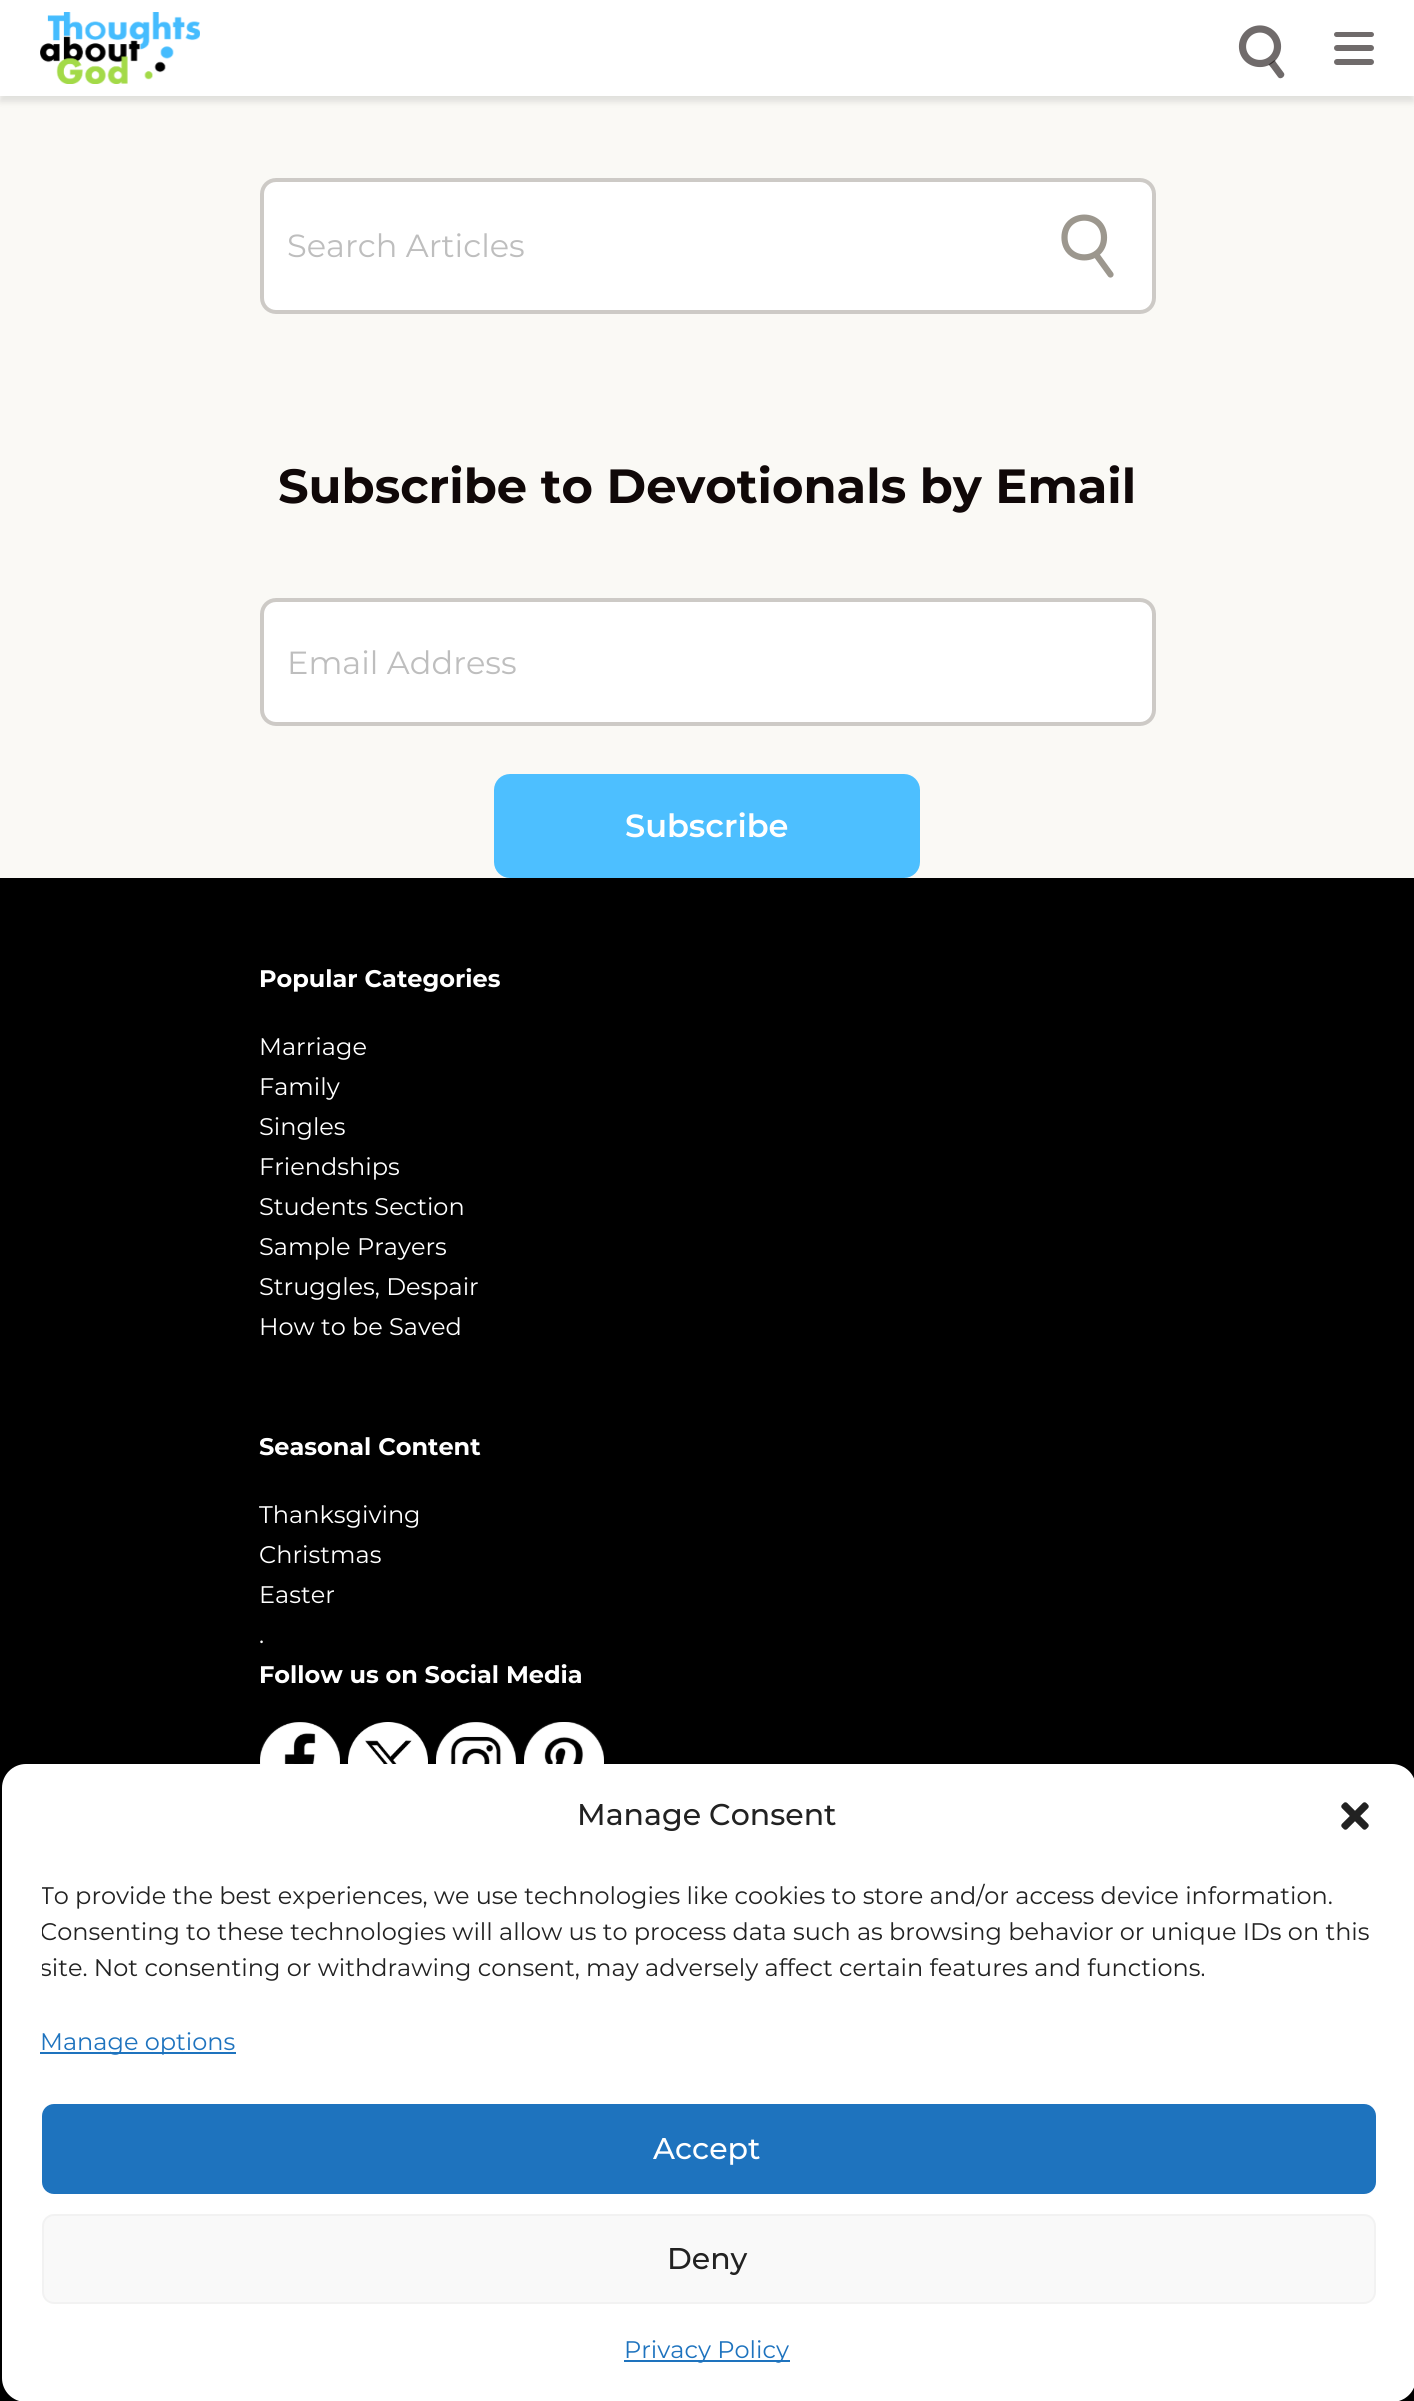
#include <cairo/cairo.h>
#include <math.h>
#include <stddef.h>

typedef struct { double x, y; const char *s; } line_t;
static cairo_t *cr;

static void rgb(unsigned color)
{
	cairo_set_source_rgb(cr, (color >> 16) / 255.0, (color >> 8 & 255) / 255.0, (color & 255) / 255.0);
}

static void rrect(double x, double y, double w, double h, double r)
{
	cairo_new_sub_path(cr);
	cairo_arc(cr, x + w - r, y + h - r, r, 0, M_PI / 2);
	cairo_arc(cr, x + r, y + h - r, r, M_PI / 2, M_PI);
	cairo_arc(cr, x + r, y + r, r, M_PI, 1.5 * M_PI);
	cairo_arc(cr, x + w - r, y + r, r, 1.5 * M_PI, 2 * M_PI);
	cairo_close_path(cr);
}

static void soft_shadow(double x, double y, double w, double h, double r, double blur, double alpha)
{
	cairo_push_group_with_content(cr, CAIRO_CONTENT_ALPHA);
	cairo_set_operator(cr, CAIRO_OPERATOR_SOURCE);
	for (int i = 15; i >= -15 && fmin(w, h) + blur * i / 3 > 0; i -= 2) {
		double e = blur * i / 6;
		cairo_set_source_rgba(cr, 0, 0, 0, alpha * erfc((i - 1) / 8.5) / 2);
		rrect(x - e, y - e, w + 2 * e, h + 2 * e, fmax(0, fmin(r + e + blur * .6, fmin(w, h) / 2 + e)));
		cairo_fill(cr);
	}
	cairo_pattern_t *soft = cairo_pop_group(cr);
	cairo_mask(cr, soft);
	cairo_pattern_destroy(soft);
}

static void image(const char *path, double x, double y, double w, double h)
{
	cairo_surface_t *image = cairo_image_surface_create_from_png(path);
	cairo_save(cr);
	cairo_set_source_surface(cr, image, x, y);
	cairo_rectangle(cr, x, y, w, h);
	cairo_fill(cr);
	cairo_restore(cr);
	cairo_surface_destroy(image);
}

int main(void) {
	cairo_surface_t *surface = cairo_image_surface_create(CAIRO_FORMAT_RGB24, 1414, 2401);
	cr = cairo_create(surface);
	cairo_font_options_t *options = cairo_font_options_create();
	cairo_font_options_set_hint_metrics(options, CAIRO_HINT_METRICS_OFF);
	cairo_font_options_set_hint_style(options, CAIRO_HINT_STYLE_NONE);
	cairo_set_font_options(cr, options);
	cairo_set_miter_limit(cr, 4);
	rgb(0xfaf9f5);
	cairo_paint(cr);
	rgb(0x000000);
	soft_shadow(0, 6, 1414, 96, 0, 3, 0.1);
	rgb(0xffffff);
	cairo_rectangle(cr, 0, 0, 1414, 96);
	cairo_fill(cr);
	image("img/1.png", 40, 12, 160, 72);
	cairo_new_path(cr);
	cairo_move_to(cr, 1277.5, 46.5);
	cairo_curve_to(cr, 1277.5, 56, 1269.5, 63.5, 1260, 63.5);
	cairo_curve_to(cr, 1250, 63.5, 1242.5, 56, 1242.5, 46.5);
	cairo_curve_to(cr, 1242.5, 37, 1250, 29, 1260, 29);
	cairo_curve_to(cr, 1269.5, 29, 1277.5, 37, 1277.5, 46.5);
	cairo_close_path(cr);
	rgb(0x706b6b);
	cairo_set_line_width(cr, 7.2);
	cairo_stroke(cr);
	cairo_set_source_rgba(cr, 0.063, 0.031, 0.031, 0.6);
	cairo_new_path(cr);
	cairo_move_to(cr, 1276.5, 63);
	cairo_line_to(cr, 1274.5, 60);
	cairo_line_to(cr, 1268.5, 64.5);
	cairo_line_to(cr, 1271, 67.5);
	cairo_close_path(cr);
	cairo_move_to(cr, 1278, 77);
	cairo_curve_to(cr, 1280.5, 80.5, 1286.5, 76, 1283.5, 72.5);
	cairo_close_path(cr);
	cairo_move_to(cr, 1271, 67.5);
	cairo_line_to(cr, 1278, 77);
	cairo_line_to(cr, 1283.5, 72.5);
	cairo_line_to(cr, 1276.5, 63);
	cairo_close_path(cr);
	cairo_fill(cr);
	rgb(0x706b6b);
	rrect(1334, 32, 40, 5, 2.5);
	cairo_fill(cr);
	rrect(1334, 45, 40, 6, 3);
	cairo_fill(cr);
	rrect(1334, 59, 40, 6, 3);
	cairo_fill(cr);
	rgb(0xffffff);
	rrect(260, 178, 896, 136, 16);
	cairo_fill(cr);
	rrect(262, 180, 892, 132, 14);
	cairo_set_source_rgba(cr, 0.612, 0.592, 0.557, 0.5);
	cairo_set_line_width(cr, 4);
	cairo_stroke(cr);
	cairo_new_path(cr);
	cairo_move_to(cr, 1104, 237.5);
	cairo_curve_to(cr, 1104, 264, 1064.5, 264, 1064.5, 237.5);
	cairo_curve_to(cr, 1064.5, 211, 1104, 211, 1104, 237.5);
	cairo_close_path(cr);
	rgb(0x9c978e);
	cairo_set_line_width(cr, 6.2);
	cairo_stroke(cr);
	cairo_new_path(cr);
	cairo_move_to(cr, 1096, 254.5);
	cairo_line_to(cr, 1110.5, 274.5);
	cairo_set_line_cap(cr, CAIRO_LINE_CAP_ROUND);
	cairo_stroke(cr);
	rgb(0xffffff);
	rrect(260, 598, 896, 128, 16);
	cairo_fill(cr);
	rrect(262, 600, 892, 124, 14);
	cairo_set_source_rgba(cr, 0.612, 0.592, 0.557, 0.5);
	cairo_set_line_width(cr, 4);
	cairo_set_line_cap(cr, CAIRO_LINE_CAP_BUTT);
	cairo_stroke(cr);
	rgb(0x4dbfff);
	rrect(496, 776, 422, 100, 14);
	cairo_fill_preserve(cr);
	cairo_stroke(cr);
	rgb(0x000000);
	cairo_rectangle(cr, 0, 878, 1414, 1523);
	cairo_fill(cr);
	image("img/2.png", 260, 1722, 80, 42);
	image("img/3.png", 348, 1722, 80, 42);
	image("img/4.png", 436, 1722, 80, 42);
	image("img/5.png", 524, 1722, 80, 42);
	rgb(0xffffff);
	rrect(2, 1764, 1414, 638, 24);
	cairo_fill(cr);
	image("img/6.png", 1341, 1802, 28, 28);
	rgb(0x1e73be);
	cairo_rectangle(cr, 40, 2052, 196, 2);
	cairo_fill(cr);
	rrect(43, 2105, 1332, 88, 11);
	cairo_fill_preserve(cr);
	cairo_set_line_width(cr, 2);
	cairo_stroke(cr);
	rgb(0xf9f9f9);
	rrect(43, 2215, 1332, 88, 11);
	cairo_fill_preserve(cr);
	rgb(0xf2f2f2);
	cairo_stroke(cr);
	rgb(0x1e73be);
	cairo_rectangle(cr, 624, 2360, 166, 2);
	cairo_fill(cr);
	cairo_select_font_face(cr, "Montserrat", CAIRO_FONT_SLANT_NORMAL, CAIRO_FONT_WEIGHT_NORMAL);
	cairo_set_font_size(cr, 32);
	rgb(0xbebebe);
	cairo_move_to(cr, 287, 257);
	cairo_show_text(cr, "Search Articles");
	cairo_select_font_face(cr, "Montserrat", CAIRO_FONT_SLANT_NORMAL, CAIRO_FONT_WEIGHT_BOLD);
	cairo_set_font_size(cr, 48);
	rgb(0x100808);
	cairo_move_to(cr, 278, 503);
	cairo_show_text(cr, "Subscribe to Devotionals by Email");
	cairo_select_font_face(cr, "Montserrat", CAIRO_FONT_SLANT_NORMAL, CAIRO_FONT_WEIGHT_NORMAL);
	cairo_set_font_size(cr, 32);
	rgb(0xbebebe);
	cairo_move_to(cr, 287, 674);
	cairo_show_text(cr, "Email Address");
	cairo_select_font_face(cr, "Montserrat SemiBold", CAIRO_FONT_SLANT_NORMAL, CAIRO_FONT_WEIGHT_NORMAL);
	rgb(0xffffff);
	cairo_move_to(cr, 625, 837);
	cairo_show_text(cr, "Subscribe");
	cairo_select_font_face(cr, "Montserrat", CAIRO_FONT_SLANT_NORMAL, CAIRO_FONT_WEIGHT_BOLD);
	cairo_set_font_size(cr, 24);
	cairo_move_to(cr, 259, 987);
	cairo_show_text(cr, "Popular Categories");
	cairo_select_font_face(cr, "Montserrat", CAIRO_FONT_SLANT_NORMAL, CAIRO_FONT_WEIGHT_NORMAL);
	{
		static const line_t items[] = {
			{259, 1055, "Marriage"},
			{259, 1095, "Family"},
			{259, 1135, "Singles"},
			{259, 1175, "Friendships"},
			{259, 1215, "Students Section"},
			{259, 1255, "Sample Prayers"},
			{259, 1295, "Struggles, Despair"},
			{259, 1335, "How to be Saved"},
		};
		for (size_t i = 0; i < sizeof items / sizeof *items; i++) {
			cairo_move_to(cr, items[i].x, items[i].y);
			cairo_show_text(cr, items[i].s);
		}
	}
	cairo_select_font_face(cr, "Montserrat", CAIRO_FONT_SLANT_NORMAL, CAIRO_FONT_WEIGHT_BOLD);
	cairo_move_to(cr, 259, 1455);
	cairo_show_text(cr, "Seasonal Content");
	cairo_select_font_face(cr, "Montserrat", CAIRO_FONT_SLANT_NORMAL, CAIRO_FONT_WEIGHT_NORMAL);
	{
		static const line_t items[] = {
			{259, 1523, "Thanksgiving"},
			{259, 1563, "Christmas"},
			{259, 1603, "Easter"},
			{259, 1643, "."},
		};
		for (size_t i = 0; i < sizeof items / sizeof *items; i++) {
			cairo_move_to(cr, items[i].x, items[i].y);
			cairo_show_text(cr, items[i].s);
		}
	}
	cairo_select_font_face(cr, "Montserrat", CAIRO_FONT_SLANT_NORMAL, CAIRO_FONT_WEIGHT_BOLD);
	cairo_move_to(cr, 259, 1683);
	cairo_show_text(cr, "Follow us on Social Media");
	cairo_select_font_face(cr, "Montserrat Medium", CAIRO_FONT_SLANT_NORMAL, CAIRO_FONT_WEIGHT_NORMAL);
	cairo_set_font_size(cr, 30);
	rgb(0x222222);
	cairo_move_to(cr, 577, 1825);
	cairo_show_text(cr, "Manage Consent");
	cairo_save(cr);
	cairo_rectangle(cr, 42, 1878, 1334, 118);
	cairo_clip(cr);
	cairo_select_font_face(cr, "Montserrat", CAIRO_FONT_SLANT_NORMAL, CAIRO_FONT_WEIGHT_NORMAL);
	cairo_set_font_size(cr, 24);
	{
		static const line_t items[] = {
			{40, 1904, "To provide the best experiences, we use technologies like cookies to store and/or access device information."},
			{40, 1940, "Consenting to these technologies will allow us to process data such as browsing behavior or unique IDs on this"},
			{40, 1976, "site. Not consenting or withdrawing consent, may adversely affect certain features and functions."},
		};
		for (size_t i = 0; i < sizeof items / sizeof *items; i++) {
			cairo_move_to(cr, items[i].x, items[i].y);
			cairo_show_text(cr, items[i].s);
		}
	}
	cairo_restore(cr);
	cairo_select_font_face(cr, "Montserrat", CAIRO_FONT_SLANT_NORMAL, CAIRO_FONT_WEIGHT_NORMAL);
	cairo_set_font_size(cr, 24);
	rgb(0x1e73be);
	cairo_move_to(cr, 40, 2050);
	cairo_show_text(cr, "Manage options");
	cairo_select_font_face(cr, "Montserrat Medium", CAIRO_FONT_SLANT_NORMAL, CAIRO_FONT_WEIGHT_NORMAL);
	cairo_set_font_size(cr, 30);
	rgb(0xffffff);
	cairo_move_to(cr, 653, 2159);
	cairo_show_text(cr, "Accept");
	rgb(0x222222);
	cairo_move_to(cr, 667, 2269);
	cairo_show_text(cr, "Deny");
	cairo_select_font_face(cr, "Montserrat", CAIRO_FONT_SLANT_NORMAL, CAIRO_FONT_WEIGHT_NORMAL);
	cairo_set_font_size(cr, 24);
	rgb(0x1e73be);
	cairo_move_to(cr, 624, 2358);
	cairo_show_text(cr, "Privacy Policy");
	cairo_surface_write_to_png(surface, "page.png");
	cairo_font_options_destroy(options);
	cairo_destroy(cr);
	cairo_surface_destroy(surface);
	return 0;
}
